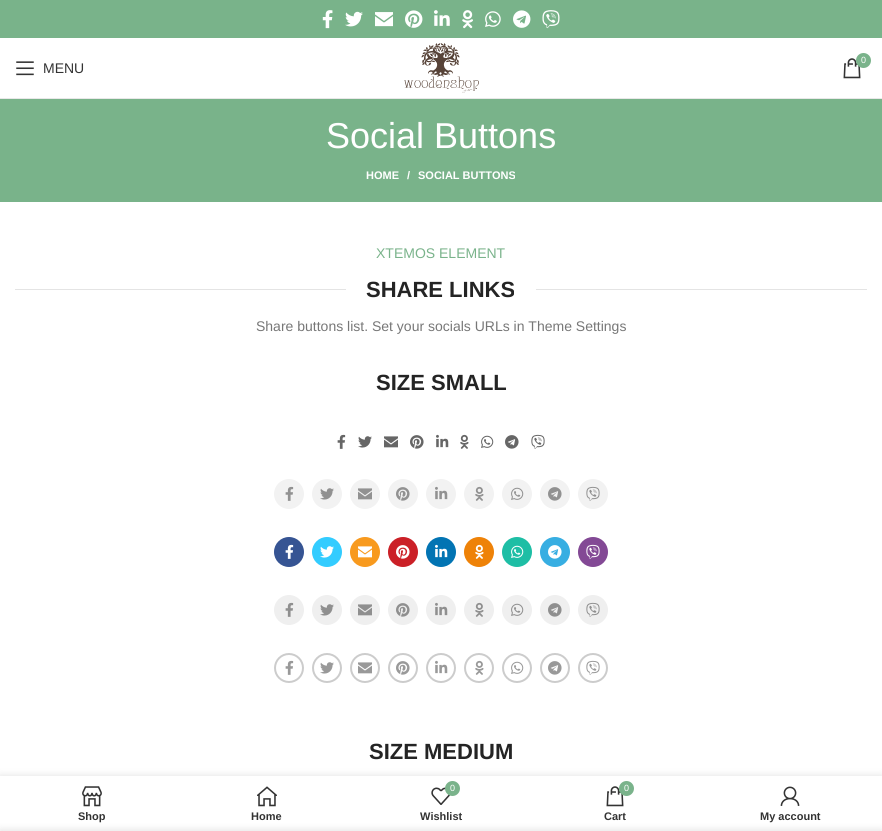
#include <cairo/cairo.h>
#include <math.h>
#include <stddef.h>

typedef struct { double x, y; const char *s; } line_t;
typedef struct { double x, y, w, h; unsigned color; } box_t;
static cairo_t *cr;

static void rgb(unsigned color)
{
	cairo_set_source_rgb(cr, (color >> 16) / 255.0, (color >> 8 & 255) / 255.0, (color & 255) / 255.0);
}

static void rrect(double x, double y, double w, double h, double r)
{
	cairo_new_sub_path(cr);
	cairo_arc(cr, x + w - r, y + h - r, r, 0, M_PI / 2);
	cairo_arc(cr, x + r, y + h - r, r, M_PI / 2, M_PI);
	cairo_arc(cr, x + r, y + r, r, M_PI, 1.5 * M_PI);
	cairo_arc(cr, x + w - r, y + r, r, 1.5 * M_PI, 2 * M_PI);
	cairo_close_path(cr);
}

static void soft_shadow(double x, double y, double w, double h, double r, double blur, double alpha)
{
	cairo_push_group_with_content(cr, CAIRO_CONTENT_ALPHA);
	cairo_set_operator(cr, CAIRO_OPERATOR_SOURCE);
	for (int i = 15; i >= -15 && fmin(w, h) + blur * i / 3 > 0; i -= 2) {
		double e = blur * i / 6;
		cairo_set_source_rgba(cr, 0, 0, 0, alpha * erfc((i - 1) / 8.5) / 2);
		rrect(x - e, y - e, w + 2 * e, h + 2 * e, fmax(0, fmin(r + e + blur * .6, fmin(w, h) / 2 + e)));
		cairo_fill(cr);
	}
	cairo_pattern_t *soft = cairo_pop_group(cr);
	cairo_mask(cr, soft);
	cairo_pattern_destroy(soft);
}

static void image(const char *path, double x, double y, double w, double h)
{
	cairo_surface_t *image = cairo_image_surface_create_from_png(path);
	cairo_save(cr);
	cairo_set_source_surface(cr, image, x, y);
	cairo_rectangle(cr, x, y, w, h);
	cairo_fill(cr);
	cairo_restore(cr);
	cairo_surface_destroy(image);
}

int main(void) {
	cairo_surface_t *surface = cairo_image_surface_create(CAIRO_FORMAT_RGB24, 882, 831);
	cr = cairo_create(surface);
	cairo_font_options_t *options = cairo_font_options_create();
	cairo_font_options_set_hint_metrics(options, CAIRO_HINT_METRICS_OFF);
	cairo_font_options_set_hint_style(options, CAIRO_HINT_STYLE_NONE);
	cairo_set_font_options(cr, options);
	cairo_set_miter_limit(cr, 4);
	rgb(0xffffff);
	cairo_paint(cr);
	rgb(0x79b38a);
	cairo_rectangle(cr, 0, 0, 882, 38);
	cairo_fill(cr);
	image("img/1.png", 322, 10, 11, 19);
	image("img/2.png", 345, 11, 18, 16);
	image("img/3.png", 375, 12, 18, 15);
	image("img/4.png", 405, 10, 18, 18);
	image("img/5.png", 434, 10, 16, 16);
	image("img/6.png", 462, 10, 11, 19);
	image("img/7.png", 485, 11, 16, 16);
	image("img/8.png", 513, 10, 18, 18);
	image("img/9.png", 542, 10, 18, 19);
	rgb(0xe8e8e8);
	cairo_rectangle(cr, 0, 98, 882, 1);
	cairo_fill(cr);
	image("img/10.png", 404, 43, 75, 50);
	image("img/11.png", 843, 58, 18, 21);
	rgb(0x7ab38b);
	cairo_arc(cr, 863.5, 60.5, 7.5, 0, 2 * M_PI);
	cairo_fill(cr);
	image("img/12.png", 16, 61, 18, 15);
	{
		static const box_t items[] = {
			{0, 99, 882, 103, 0x79b38a},
			{15, 289, 331, 1, 0xe4e4e4},
			{536, 289, 331, 1, 0xe4e4e4},
		};
		for (size_t i = 0; i < sizeof items / sizeof *items; i++) {
			rgb(items[i].color);
			cairo_rectangle(cr, items[i].x, items[i].y, items[i].w, items[i].h);
			cairo_fill(cr);
		}
	}
	image("img/13.png", 337, 434, 9, 15);
	image("img/14.png", 358, 436, 14, 12);
	image("img/15.png", 384, 436, 14, 12);
	image("img/16.png", 410, 435, 14, 14);
	image("img/17.png", 436, 434, 13, 14);
	image("img/18.png", 460, 434, 9, 15);
	image("img/19.png", 481, 435, 13, 13);
	image("img/20.png", 505, 435, 14, 14);
	image("img/21.png", 531, 434, 14, 15);
	rgb(0xf2f2f2);
	cairo_arc(cr, 289, 494, 15, 0, 2 * M_PI);
	cairo_fill(cr);
	image("img/22.png", 285, 486, 9, 15);
	cairo_arc(cr, 327, 494, 15, 0, 2 * M_PI);
	cairo_fill(cr);
	image("img/23.png", 320, 488, 14, 12);
	cairo_arc(cr, 365, 494, 15, 0, 2 * M_PI);
	cairo_fill(cr);
	image("img/24.png", 358, 488, 14, 12);
	cairo_arc(cr, 403, 494, 15, 0, 2 * M_PI);
	cairo_fill(cr);
	image("img/25.png", 396, 487, 14, 14);
	cairo_arc(cr, 441, 494, 15, 0, 2 * M_PI);
	cairo_fill(cr);
	image("img/26.png", 435, 486, 13, 14);
	cairo_arc(cr, 479, 494, 15, 0, 2 * M_PI);
	cairo_fill(cr);
	image("img/27.png", 475, 486, 9, 15);
	cairo_arc(cr, 517, 494, 15, 0, 2 * M_PI);
	cairo_fill(cr);
	image("img/28.png", 511, 487, 13, 13);
	cairo_arc(cr, 555, 494, 15, 0, 2 * M_PI);
	cairo_fill(cr);
	image("img/29.png", 548, 487, 14, 14);
	cairo_arc(cr, 593, 494, 15, 0, 2 * M_PI);
	cairo_fill(cr);
	image("img/30.png", 586, 486, 14, 15);
	rgb(0x365493);
	cairo_arc(cr, 289, 552, 15, 0, 2 * M_PI);
	cairo_fill(cr);
	image("img/31.png", 285, 544, 9, 15);
	rgb(0x33ccff);
	cairo_arc(cr, 327, 552, 15, 0, 2 * M_PI);
	cairo_fill(cr);
	image("img/32.png", 320, 546, 14, 12);
	rgb(0xf89a1e);
	cairo_arc(cr, 365, 552, 15, 0, 2 * M_PI);
	cairo_fill(cr);
	image("img/33.png", 358, 546, 14, 12);
	rgb(0xcb2027);
	cairo_arc(cr, 403, 552, 15, 0, 2 * M_PI);
	cairo_fill(cr);
	image("img/34.png", 396, 545, 14, 14);
	rgb(0x0274b3);
	cairo_arc(cr, 441, 552, 15, 0, 2 * M_PI);
	cairo_fill(cr);
	image("img/35.png", 435, 544, 13, 14);
	rgb(0xee8208);
	cairo_arc(cr, 479, 552, 15, 0, 2 * M_PI);
	cairo_fill(cr);
	image("img/36.png", 475, 544, 9, 15);
	rgb(0x1ebea5);
	cairo_arc(cr, 517, 552, 15, 0, 2 * M_PI);
	cairo_fill(cr);
	image("img/37.png", 511, 545, 13, 13);
	rgb(0x37aee2);
	cairo_arc(cr, 555, 552, 15, 0, 2 * M_PI);
	cairo_fill(cr);
	image("img/38.png", 548, 545, 14, 14);
	rgb(0x834995);
	cairo_arc(cr, 593, 552, 15, 0, 2 * M_PI);
	cairo_fill(cr);
	image("img/39.png", 586, 544, 14, 15);
	rgb(0xefefef);
	cairo_arc(cr, 289, 610, 15, 0, 2 * M_PI);
	cairo_fill(cr);
	image("img/40.png", 285, 602, 9, 15);
	cairo_arc(cr, 327, 610, 15, 0, 2 * M_PI);
	cairo_fill(cr);
	image("img/41.png", 320, 604, 14, 12);
	cairo_arc(cr, 365, 610, 15, 0, 2 * M_PI);
	cairo_fill(cr);
	image("img/42.png", 358, 604, 14, 12);
	cairo_arc(cr, 403, 610, 15, 0, 2 * M_PI);
	cairo_fill(cr);
	image("img/43.png", 396, 603, 14, 14);
	cairo_arc(cr, 441, 610, 15, 0, 2 * M_PI);
	cairo_fill(cr);
	image("img/44.png", 435, 602, 13, 14);
	cairo_arc(cr, 479, 610, 15, 0, 2 * M_PI);
	cairo_fill(cr);
	image("img/45.png", 475, 602, 9, 15);
	cairo_arc(cr, 517, 610, 15, 0, 2 * M_PI);
	cairo_fill(cr);
	image("img/46.png", 511, 603, 13, 13);
	cairo_arc(cr, 555, 610, 15, 0, 2 * M_PI);
	cairo_fill(cr);
	image("img/47.png", 548, 603, 14, 14);
	cairo_arc(cr, 593, 610, 15, 0, 2 * M_PI);
	cairo_fill(cr);
	image("img/48.png", 586, 602, 14, 15);
	cairo_arc(cr, 289, 668, 14, 0, 2 * M_PI);
	rgb(0xcccccc);
	cairo_stroke(cr);
	image("img/49.png", 285, 660, 9, 15);
	cairo_arc(cr, 327, 668, 14, 0, 2 * M_PI);
	cairo_stroke(cr);
	image("img/50.png", 320, 662, 14, 12);
	cairo_arc(cr, 365, 668, 14, 0, 2 * M_PI);
	cairo_stroke(cr);
	image("img/51.png", 358, 662, 14, 12);
	cairo_arc(cr, 403, 668, 14, 0, 2 * M_PI);
	cairo_stroke(cr);
	image("img/52.png", 396, 661, 14, 14);
	cairo_arc(cr, 441, 668, 14, 0, 2 * M_PI);
	cairo_stroke(cr);
	image("img/53.png", 435, 660, 13, 14);
	cairo_arc(cr, 479, 668, 14, 0, 2 * M_PI);
	cairo_stroke(cr);
	image("img/54.png", 475, 660, 9, 15);
	cairo_arc(cr, 517, 668, 14, 0, 2 * M_PI);
	cairo_stroke(cr);
	image("img/55.png", 511, 661, 13, 13);
	cairo_arc(cr, 555, 668, 14, 0, 2 * M_PI);
	cairo_stroke(cr);
	image("img/56.png", 548, 661, 14, 14);
	cairo_arc(cr, 593, 668, 14, 0, 2 * M_PI);
	cairo_stroke(cr);
	image("img/57.png", 586, 660, 14, 15);
	rgb(0x000000);
	soft_shadow(0, 776, 882, 55, 0, 4.5, 0.12);
	rgb(0xffffff);
	cairo_rectangle(cr, 0, 776, 882, 55);
	cairo_fill(cr);
	image("img/58.png", 82, 786, 20, 21);
	image("img/59.png", 257, 786, 20, 21);
	image("img/60.png", 431, 787, 20, 18);
	rgb(0x7ab38b);
	cairo_arc(cr, 452.5, 788.5, 7.5, 0, 2 * M_PI);
	cairo_fill(cr);
	image("img/11.png", 606, 786, 18, 21);
	cairo_arc(cr, 626.5, 788.5, 7.5, 0, 2 * M_PI);
	cairo_fill(cr);
	image("img/61.png", 780, 786, 20, 20);
	rgb(0x000000);
	soft_shadow(0, 831, 882, 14, 0, 4.5, 0.14);
	cairo_select_font_face(cr, "Liberation Sans", CAIRO_FONT_SLANT_NORMAL, CAIRO_FONT_WEIGHT_NORMAL);
	cairo_set_font_size(cr, 9);
	rgb(0xffffff);
	cairo_move_to(cr, 861, 63);
	cairo_show_text(cr, "0");
	cairo_set_font_size(cr, 14);
	rgb(0x333333);
	cairo_move_to(cr, 43, 73);
	cairo_show_text(cr, "MENU");
	cairo_set_font_size(cr, 36);
	rgb(0xffffff);
	cairo_move_to(cr, 326, 148);
	cairo_show_text(cr, "Social Buttons");
	cairo_select_font_face(cr, "Liberation Sans", CAIRO_FONT_SLANT_NORMAL, CAIRO_FONT_WEIGHT_BOLD);
	cairo_set_font_size(cr, 11);
	{
		static const line_t items[] = {
			{366, 179, "HOME"},
			{407, 179, "/"},
			{418, 179, "SOCIAL BUTTONS"},
		};
		for (size_t i = 0; i < sizeof items / sizeof *items; i++) {
			cairo_move_to(cr, items[i].x, items[i].y);
			cairo_show_text(cr, items[i].s);
		}
	}
	cairo_select_font_face(cr, "Liberation Sans", CAIRO_FONT_SLANT_NORMAL, CAIRO_FONT_WEIGHT_NORMAL);
	cairo_set_font_size(cr, 14);
	rgb(0x7ab38b);
	cairo_move_to(cr, 376, 258);
	cairo_show_text(cr, "XTEMOS ELEMENT");
	cairo_select_font_face(cr, "Liberation Sans", CAIRO_FONT_SLANT_NORMAL, CAIRO_FONT_WEIGHT_BOLD);
	cairo_set_font_size(cr, 22);
	rgb(0x242424);
	cairo_move_to(cr, 366, 297);
	cairo_show_text(cr, "SHARE LINKS");
	cairo_select_font_face(cr, "Liberation Sans", CAIRO_FONT_SLANT_NORMAL, CAIRO_FONT_WEIGHT_NORMAL);
	cairo_set_font_size(cr, 14);
	rgb(0x777777);
	cairo_move_to(cr, 256, 331);
	cairo_show_text(cr, "Share buttons list. Set your socials URLs in Theme Settings");
	cairo_select_font_face(cr, "Liberation Sans", CAIRO_FONT_SLANT_NORMAL, CAIRO_FONT_WEIGHT_BOLD);
	cairo_set_font_size(cr, 22);
	rgb(0x242424);
	cairo_move_to(cr, 376, 390);
	cairo_show_text(cr, "SIZE SMALL");
	cairo_move_to(cr, 369, 759);
	cairo_show_text(cr, "SIZE MEDIUM");
	cairo_set_font_size(cr, 11);
	rgb(0x333333);
	cairo_move_to(cr, 78, 820);
	cairo_show_text(cr, "Shop");
	cairo_move_to(cr, 251, 820);
	cairo_show_text(cr, "Home");
	cairo_select_font_face(cr, "Liberation Sans", CAIRO_FONT_SLANT_NORMAL, CAIRO_FONT_WEIGHT_NORMAL);
	cairo_set_font_size(cr, 9);
	rgb(0xffffff);
	cairo_move_to(cr, 450, 791);
	cairo_show_text(cr, "0");
	cairo_select_font_face(cr, "Liberation Sans", CAIRO_FONT_SLANT_NORMAL, CAIRO_FONT_WEIGHT_BOLD);
	cairo_set_font_size(cr, 11);
	rgb(0x333333);
	cairo_move_to(cr, 420, 820);
	cairo_show_text(cr, "Wishlist");
	cairo_select_font_face(cr, "Liberation Sans", CAIRO_FONT_SLANT_NORMAL, CAIRO_FONT_WEIGHT_NORMAL);
	cairo_set_font_size(cr, 9);
	rgb(0xffffff);
	cairo_move_to(cr, 624, 791);
	cairo_show_text(cr, "0");
	cairo_select_font_face(cr, "Liberation Sans", CAIRO_FONT_SLANT_NORMAL, CAIRO_FONT_WEIGHT_BOLD);
	cairo_set_font_size(cr, 11);
	rgb(0x333333);
	cairo_move_to(cr, 604, 820);
	cairo_show_text(cr, "Cart");
	cairo_move_to(cr, 760, 820);
	cairo_show_text(cr, "My account");
	cairo_surface_write_to_png(surface, "page.png");
	cairo_font_options_destroy(options);
	cairo_destroy(cr);
	cairo_surface_destroy(surface);
	return 0;
}
